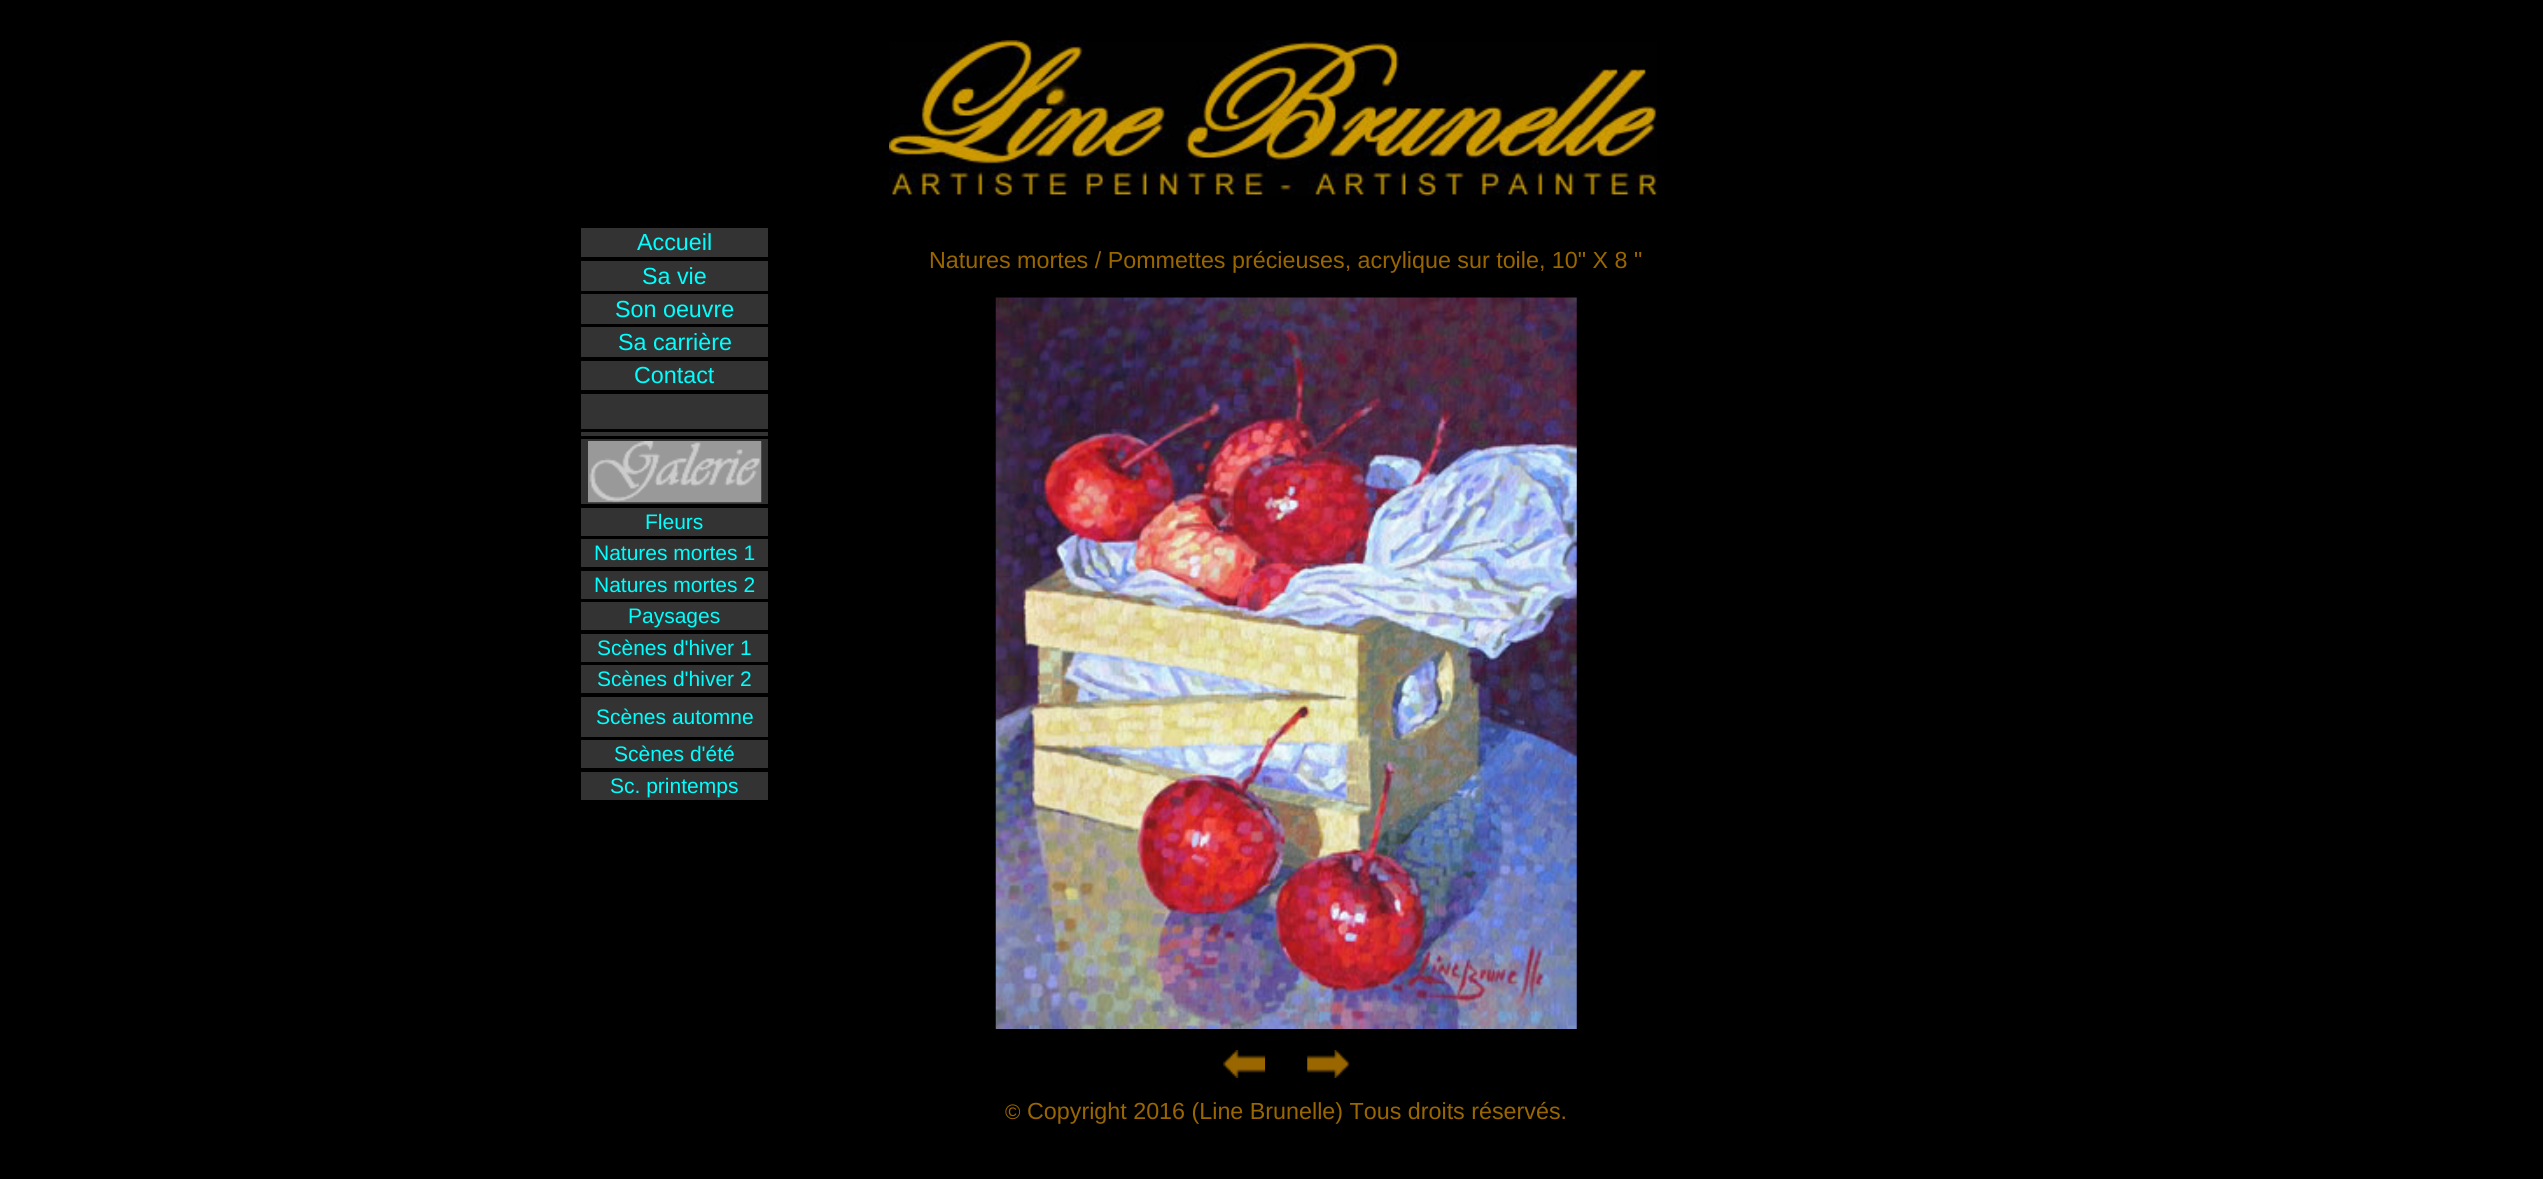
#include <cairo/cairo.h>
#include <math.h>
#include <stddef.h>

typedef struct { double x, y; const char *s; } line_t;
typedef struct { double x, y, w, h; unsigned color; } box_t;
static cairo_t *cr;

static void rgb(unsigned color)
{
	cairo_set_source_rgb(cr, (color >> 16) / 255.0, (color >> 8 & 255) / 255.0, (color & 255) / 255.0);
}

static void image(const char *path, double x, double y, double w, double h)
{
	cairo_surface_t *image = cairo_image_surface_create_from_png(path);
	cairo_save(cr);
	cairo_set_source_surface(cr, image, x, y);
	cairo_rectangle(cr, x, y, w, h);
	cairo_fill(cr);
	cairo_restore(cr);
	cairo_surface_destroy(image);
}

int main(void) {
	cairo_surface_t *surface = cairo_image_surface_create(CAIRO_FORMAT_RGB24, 2543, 1179);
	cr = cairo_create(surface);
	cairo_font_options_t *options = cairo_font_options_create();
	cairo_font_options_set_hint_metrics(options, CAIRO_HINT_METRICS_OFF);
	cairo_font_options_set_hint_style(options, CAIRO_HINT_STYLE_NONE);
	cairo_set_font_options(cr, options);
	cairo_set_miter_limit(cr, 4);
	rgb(0x000000);
	cairo_paint(cr);
	image("img/1.png", 889, 40, 769, 156);
	{
		static const box_t items[] = {
			{581, 228, 187, 29, 0x333333},
			{581, 261, 187, 30, 0x333333},
			{581, 294, 187, 30, 0x333333},
			{581, 327, 187, 30, 0x333333},
			{581, 361, 187, 29, 0x333333},
			{581, 394, 187, 35, 0x333333},
			{581, 432, 187, 4, 0x333333},
			{581, 439, 187, 65, 0x333333},
		};
		for (size_t i = 0; i < sizeof items / sizeof *items; i++) {
			rgb(items[i].color);
			cairo_rectangle(cr, items[i].x, items[i].y, items[i].w, items[i].h);
			cairo_fill(cr);
		}
	}
	image("img/2.png", 588, 441, 174, 62);
	{
		static const box_t items[] = {
			{581, 508, 187, 28, 0x333333},
			{581, 539, 187, 28, 0x333333},
			{581, 571, 187, 28, 0x333333},
			{581, 602, 187, 28, 0x333333},
			{581, 634, 187, 28, 0x333333},
			{581, 665, 187, 28, 0x333333},
			{581, 697, 187, 40, 0x333333},
			{581, 740, 187, 28, 0x333333},
			{581, 772, 187, 28, 0x333333},
		};
		for (size_t i = 0; i < sizeof items / sizeof *items; i++) {
			rgb(items[i].color);
			cairo_rectangle(cr, items[i].x, items[i].y, items[i].w, items[i].h);
			cairo_fill(cr);
		}
	}
	image("img/3.png", 995, 297, 582, 732);
	image("img/4.png", 1223, 1050, 43, 28);
	image("img/5.png", 1307, 1050, 43, 28);
	cairo_set_source_rgba(cr, 0, 0, 0, 0.75);
	cairo_rectangle(cr, 1265, 1056, 1, 16);
	cairo_fill(cr);
	cairo_select_font_face(cr, "Liberation Sans", CAIRO_FONT_SLANT_NORMAL, CAIRO_FONT_WEIGHT_NORMAL);
	cairo_set_font_size(cr, 23.3);
	rgb(0x00ffff);
	{
		static const line_t items[] = {
			{637, 250, "Accueil"},
			{642, 284, "Sa vie"},
			{615, 317, "Son oeuvre"},
			{618, 350, "Sa carrière"},
			{634, 383, "Contact"},
		};
		for (size_t i = 0; i < sizeof items / sizeof *items; i++) {
			cairo_move_to(cr, items[i].x, items[i].y);
			cairo_show_text(cr, items[i].s);
		}
	}
	cairo_set_font_size(cr, 21);
	{
		static const line_t items[] = {
			{645, 529, "Fleurs"},
			{594, 560, "Natures mortes 1"},
			{594, 592, "Natures mortes 2"},
			{628, 623, "Paysages"},
			{597, 655, "Scènes d'hiver 1"},
			{597, 686, "Scènes d'hiver 2"},
			{596, 724, "Scènes automne"},
			{614, 761, "Scènes d'été"},
			{610, 793, "Sc. printemps"},
		};
		for (size_t i = 0; i < sizeof items / sizeof *items; i++) {
			cairo_move_to(cr, items[i].x, items[i].y);
			cairo_show_text(cr, items[i].s);
		}
	}
	cairo_set_font_size(cr, 23.3);
	rgb(0x996600);
	cairo_move_to(cr, 929, 268);
	cairo_show_text(cr, "Natures mortes / Pommettes précieuses, acrylique sur toile, 10\" X 8 \"");
	cairo_set_font_size(cr, 21);
	cairo_move_to(cr, 1005, 1119);
	cairo_show_text(cr, "©");
	cairo_set_font_size(cr, 23.3);
	cairo_move_to(cr, 1027, 1119);
	cairo_show_text(cr, "Copyright 2016 (Line Brunelle) Tous droits réservés.");
	cairo_surface_write_to_png(surface, "page.png");
	cairo_font_options_destroy(options);
	cairo_destroy(cr);
	cairo_surface_destroy(surface);
	return 0;
}
